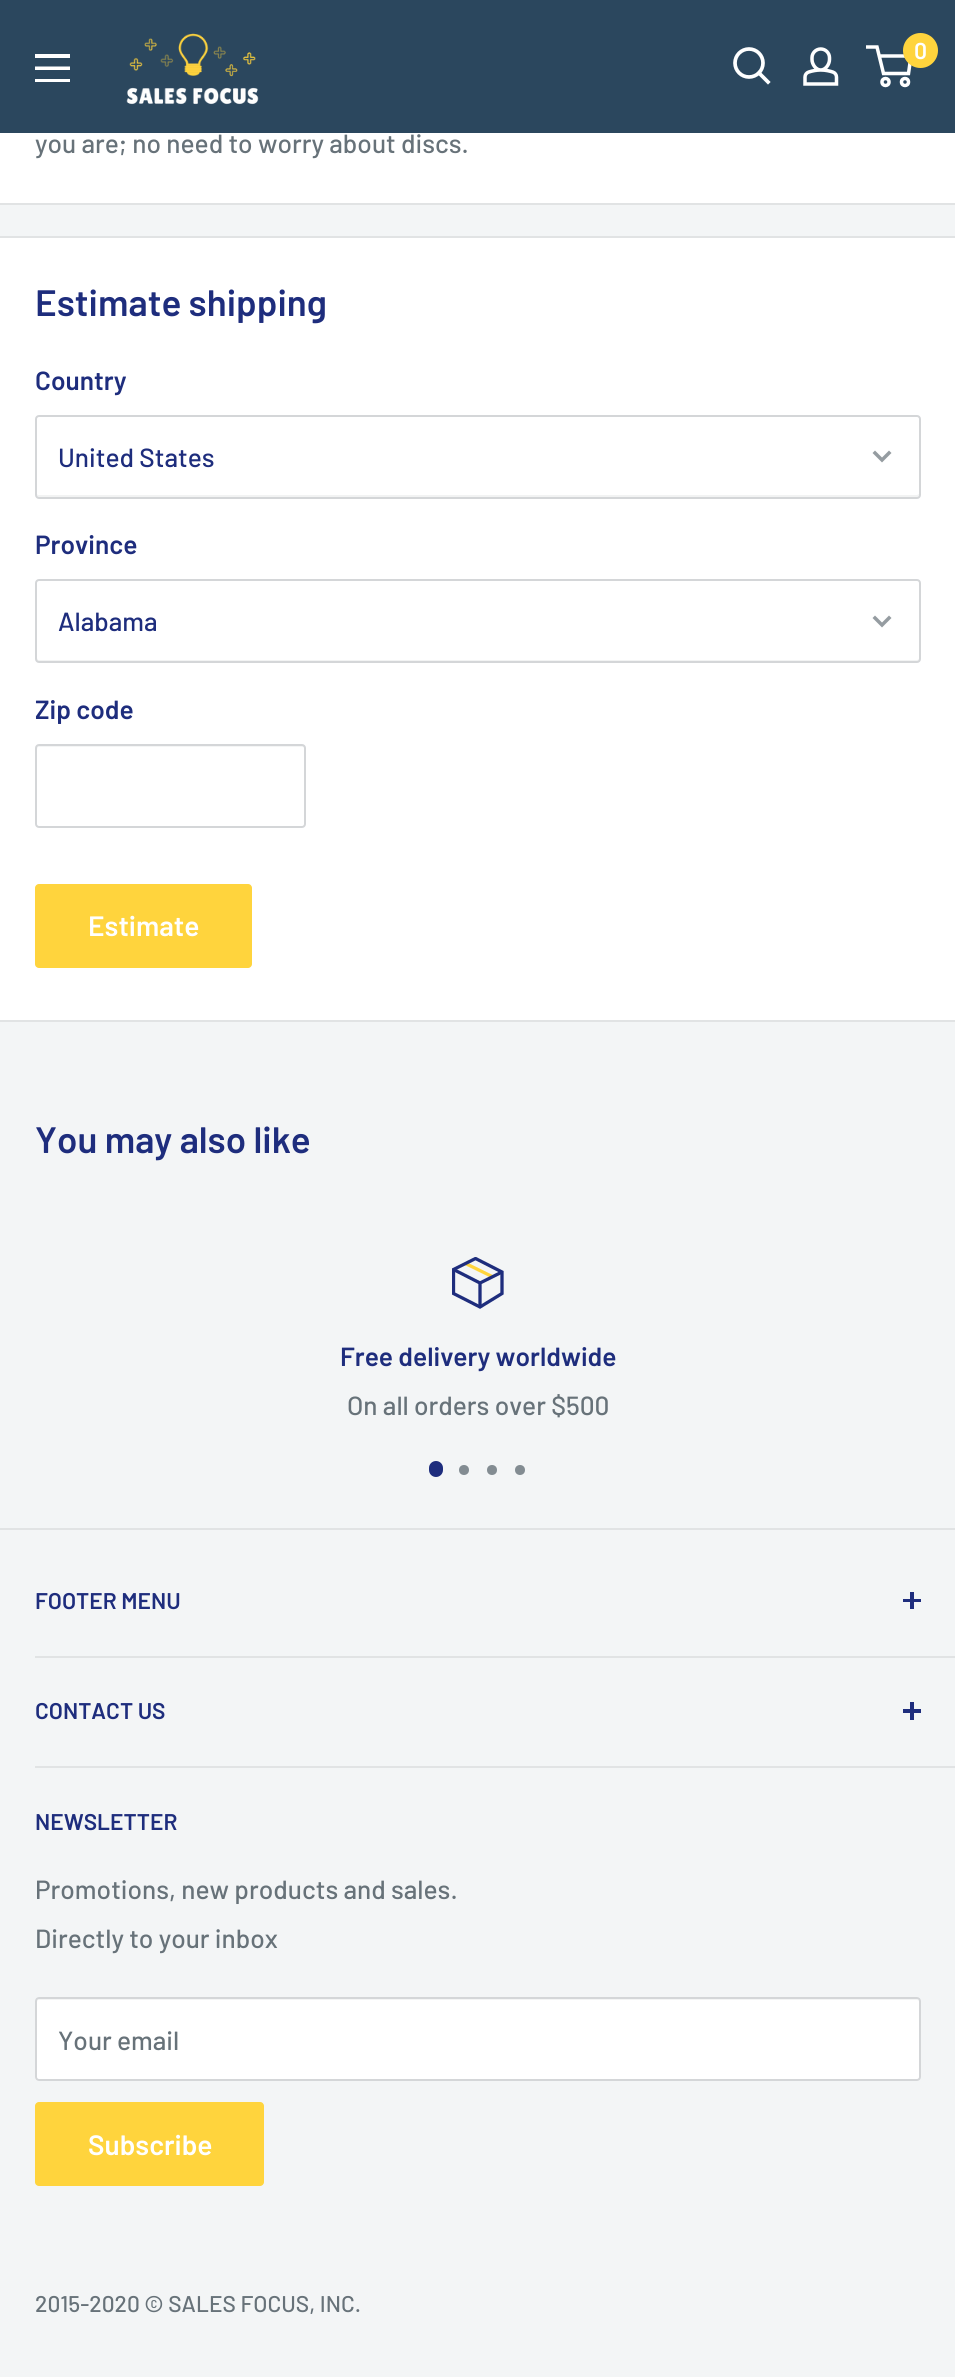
#include <cairo/cairo.h>
#include <math.h>
#include <stddef.h>

typedef struct { double x, y; const char *s; } line_t;
typedef struct { double x, y, w, h; unsigned color; } box_t;
static cairo_t *cr;

static void rgb(unsigned color)
{
	cairo_set_source_rgb(cr, (color >> 16) / 255.0, (color >> 8 & 255) / 255.0, (color & 255) / 255.0);
}

static void rrect(double x, double y, double w, double h, double r)
{
	cairo_new_sub_path(cr);
	cairo_arc(cr, x + w - r, y + h - r, r, 0, M_PI / 2);
	cairo_arc(cr, x + r, y + h - r, r, M_PI / 2, M_PI);
	cairo_arc(cr, x + r, y + r, r, M_PI, 1.5 * M_PI);
	cairo_arc(cr, x + w - r, y + r, r, 1.5 * M_PI, 2 * M_PI);
	cairo_close_path(cr);
}

static void image(const char *path, double x, double y, double w, double h)
{
	cairo_surface_t *image = cairo_image_surface_create_from_png(path);
	cairo_save(cr);
	cairo_set_source_surface(cr, image, x, y);
	cairo_rectangle(cr, x, y, w, h);
	cairo_fill(cr);
	cairo_restore(cr);
	cairo_surface_destroy(image);
}

int main(void) {
	cairo_surface_t *surface = cairo_image_surface_create(CAIRO_FORMAT_RGB24, 955, 2377);
	cr = cairo_create(surface);
	cairo_font_options_t *options = cairo_font_options_create();
	cairo_font_options_set_hint_metrics(options, CAIRO_HINT_METRICS_OFF);
	cairo_font_options_set_hint_style(options, CAIRO_HINT_STYLE_NONE);
	cairo_set_font_options(cr, options);
	cairo_set_miter_limit(cr, 4);
	rgb(0xf3f5f6);
	cairo_paint(cr);
	rgb(0x2b475e);
	cairo_rectangle(cr, 0, 0, 955, 133);
	cairo_fill(cr);
	image("img/1.png", 126, 33, 133, 72);
	cairo_new_path(cr);
	cairo_move_to(cr, 768, 82);
	cairo_line_to(cr, 759, 73);
	rgb(0xffffff);
	cairo_set_line_width(cr, 3.7);
	cairo_set_line_cap(cr, CAIRO_LINE_CAP_SQUARE);
	cairo_stroke(cr);
	cairo_arc(cr, 749, 63, 14, 0, 2 * M_PI);
	cairo_set_line_cap(cr, CAIRO_LINE_CAP_BUTT);
	cairo_stroke(cr);
	image("img/2.png", 803, 47, 36, 39);
	cairo_arc(cr, 885.5, 82, 3.5, 0, 2 * M_PI);
	cairo_set_line_width(cr, 3.5);
	cairo_stroke(cr);
	cairo_arc(cr, 905, 82, 3.5, 0, 2 * M_PI);
	cairo_stroke(cr);
	cairo_new_path(cr);
	cairo_move_to(cr, 879, 56);
	cairo_line_to(cr, 911, 56);
	cairo_line_to(cr, 908.5, 73.5);
	cairo_line_to(cr, 883.5, 73.5);
	cairo_line_to(cr, 877, 47);
	cairo_line_to(cr, 866, 47);
	cairo_stroke(cr);
	rgb(0xffd43d);
	cairo_arc(cr, 920.5, 50.5, 17.5, 0, 2 * M_PI);
	cairo_fill(cr);
	rgb(0xffffff);
	cairo_set_fill_rule(cr, CAIRO_FILL_RULE_EVEN_ODD);
	cairo_new_path(cr);
	cairo_move_to(cr, 35, 79);
	cairo_line_to(cr, 70, 79);
	cairo_line_to(cr, 70, 82);
	cairo_line_to(cr, 35, 82);
	cairo_close_path(cr);
	cairo_move_to(cr, 35, 54);
	cairo_line_to(cr, 70, 54);
	cairo_line_to(cr, 70, 58);
	cairo_line_to(cr, 35, 58);
	cairo_close_path(cr);
	cairo_move_to(cr, 35, 66.5);
	cairo_line_to(cr, 70, 66.5);
	cairo_line_to(cr, 70, 70);
	cairo_line_to(cr, 35, 70);
	cairo_close_path(cr);
	cairo_fill(cr);
	{
		static const box_t items[] = {
			{0, 133, 955, 70, 0xffffff},
			{0, 203, 955, 2, 0xe1e3e4},
			{0, 238, 955, 782, 0xffffff},
			{0, 236, 955, 2, 0xe1e3e4},
			{0, 1020, 955, 2, 0xe1e3e4},
		};
		for (size_t i = 0; i < sizeof items / sizeof *items; i++) {
			rgb(items[i].color);
			cairo_rectangle(cr, items[i].x, items[i].y, items[i].w, items[i].h);
			cairo_fill(cr);
		}
	}
	rgb(0xf2f3f3);
	cairo_set_fill_rule(cr, CAIRO_FILL_RULE_WINDING);
	cairo_new_path(cr);
	cairo_move_to(cr, 37, 494);
	cairo_curve_to(cr, 37, 495, 37, 497, 39, 497);
	cairo_line_to(cr, 917, 497);
	cairo_curve_to(cr, 919, 497, 919, 495, 919, 494);
	cairo_line_to(cr, 917, 495);
	cairo_line_to(cr, 38, 495);
	cairo_close_path(cr);
	cairo_fill(cr);
	rrect(36, 416, 884, 82, 3);
	rgb(0xd4d6d8);
	cairo_set_line_width(cr, 2);
	cairo_stroke(cr);
	cairo_new_path(cr);
	cairo_move_to(cr, 889, 453);
	cairo_line_to(cr, 882, 460);
	cairo_line_to(cr, 875, 453);
	rgb(0x959ca1);
	cairo_set_line_width(cr, 3.5);
	cairo_set_line_cap(cr, CAIRO_LINE_CAP_SQUARE);
	cairo_stroke(cr);
	rgb(0xf2f3f3);
	cairo_new_path(cr);
	cairo_move_to(cr, 37, 658);
	cairo_line_to(cr, 37, 661);
	cairo_line_to(cr, 39, 662);
	cairo_line_to(cr, 918, 662);
	cairo_curve_to(cr, 919, 661, 919, 659, 919, 658);
	cairo_curve_to(cr, 919, 659, 918, 660, 917, 660);
	cairo_line_to(cr, 38, 660);
	cairo_close_path(cr);
	cairo_fill(cr);
	rrect(36, 580, 884, 82, 3);
	rgb(0xd4d6d8);
	cairo_set_line_width(cr, 2);
	cairo_set_line_cap(cr, CAIRO_LINE_CAP_BUTT);
	cairo_stroke(cr);
	cairo_new_path(cr);
	cairo_move_to(cr, 889, 618);
	cairo_line_to(cr, 882, 625);
	cairo_line_to(cr, 875, 618);
	rgb(0x959ca1);
	cairo_set_line_width(cr, 3.5);
	cairo_set_line_cap(cr, CAIRO_LINE_CAP_SQUARE);
	cairo_stroke(cr);
	rgb(0xf4f5f5);
	cairo_new_path(cr);
	cairo_move_to(cr, 38, 747);
	cairo_line_to(cr, 303, 747);
	cairo_curve_to(cr, 304, 747, 304, 748, 304, 749);
	cairo_line_to(cr, 304, 826);
	cairo_curve_to(cr, 305, 825, 305, 825, 305, 824);
	cairo_line_to(cr, 305, 748);
	cairo_curve_to(cr, 305, 747, 304, 746, 303, 746);
	cairo_line_to(cr, 39, 746);
	cairo_curve_to(cr, 38, 746, 37, 747, 37, 748);
	cairo_line_to(cr, 37, 749);
	cairo_close_path(cr);
	cairo_fill(cr);
	rrect(36, 745, 269, 82, 3);
	rgb(0xd4d6d8);
	cairo_set_line_width(cr, 2);
	cairo_set_line_cap(cr, CAIRO_LINE_CAP_BUTT);
	cairo_stroke(cr);
	rgb(0xffd43d);
	rrect(35, 884, 217, 84, 4);
	cairo_fill(cr);
	cairo_new_path(cr);
	cairo_move_to(cr, 465.5, 1263.5);
	cairo_line_to(cr, 492, 1276.5);
	cairo_set_line_width(cr, 3.3);
	cairo_stroke(cr);
	cairo_new_path(cr);
	cairo_move_to(cr, 502, 1272);
	cairo_line_to(cr, 480, 1283);
	cairo_line_to(cr, 453.5, 1269.5);
	cairo_move_to(cr, 480, 1283);
	cairo_line_to(cr, 480, 1307);
	rgb(0x1e2d7d);
	cairo_stroke(cr);
	cairo_save(cr);
	cairo_rectangle(cr, 452, 1257, 52, 52);
	cairo_clip(cr);
	cairo_new_path(cr);
	cairo_move_to(cr, 502, 1272);
	cairo_line_to(cr, 502, 1293.5);
	cairo_line_to(cr, 480, 1307);
	cairo_line_to(cr, 453.5, 1293.5);
	cairo_line_to(cr, 453.5, 1269.5);
	cairo_line_to(cr, 475.5, 1258.5);
	cairo_close_path(cr);
	cairo_set_line_cap(cr, CAIRO_LINE_CAP_SQUARE);
	cairo_stroke(cr);
	cairo_restore(cr);
	rrect(429, 1461, 14, 16, 7);
	cairo_fill(cr);
	rgb(0x838c92);
	cairo_arc(cr, 464, 1470, 5, 0, 2 * M_PI);
	cairo_fill(cr);
	cairo_arc(cr, 492, 1470, 5, 0, 2 * M_PI);
	cairo_fill(cr);
	cairo_arc(cr, 520, 1470, 5, 0, 2 * M_PI);
	cairo_fill(cr);
	{
		static const box_t items[] = {
			{0, 1528, 955, 2, 0xe1e3e4},
			{35, 1656, 920, 2, 0xe1e3e4},
			{910, 1592, 4, 17, 0x1e2d7d},
			{903, 1599, 18, 3, 0x1e2d7d},
			{35, 1766, 920, 2, 0xe1e3e4},
			{910, 1702, 4, 18, 0x1e2d7d},
			{903, 1709, 18, 4, 0x1e2d7d},
		};
		for (size_t i = 0; i < sizeof items / sizeof *items; i++) {
			rgb(items[i].color);
			cairo_rectangle(cr, items[i].x, items[i].y, items[i].w, items[i].h);
			cairo_fill(cr);
		}
	}
	rgb(0xffffff);
	rrect(35, 1997, 886, 84, 4);
	cairo_fill(cr);
	rgb(0xf4f5f5);
	cairo_new_path(cr);
	cairo_move_to(cr, 38, 2000);
	cairo_line_to(cr, 917, 2000);
	cairo_curve_to(cr, 918, 2000, 919, 2001, 919, 2002);
	cairo_curve_to(cr, 919, 2001, 919, 1999, 917, 1999);
	cairo_line_to(cr, 39, 1999);
	cairo_curve_to(cr, 37, 1999, 37, 2001, 37, 2002);
	cairo_close_path(cr);
	cairo_fill(cr);
	rrect(36, 1998, 884, 82, 3);
	rgb(0xd4d6d8);
	cairo_set_line_width(cr, 2);
	cairo_stroke(cr);
	rgb(0xffd43d);
	rrect(35, 2102, 229, 84, 4);
	cairo_fill(cr);
	cairo_select_font_face(cr, "Barlow SemiBold", CAIRO_FONT_SLANT_NORMAL, CAIRO_FONT_WEIGHT_NORMAL);
	cairo_set_font_size(cr, 23);
	rgb(0xffffff);
	cairo_move_to(cr, 914, 59);
	cairo_show_text(cr, "0");
	cairo_select_font_face(cr, "Barlow Medium", CAIRO_FONT_SLANT_NORMAL, CAIRO_FONT_WEIGHT_NORMAL);
	cairo_set_font_size(cr, 26.25);
	rgb(0x677279);
	cairo_move_to(cr, 35, 153);
	cairo_show_text(cr, "you are; no need to worry about discs.");
	cairo_select_font_face(cr, "Barlow SemiBold", CAIRO_FONT_SLANT_NORMAL, CAIRO_FONT_WEIGHT_NORMAL);
	cairo_set_font_size(cr, 36.75);
	rgb(0x1e2d7d);
	cairo_move_to(cr, 35, 316);
	cairo_show_text(cr, "Estimate shipping");
	cairo_set_font_size(cr, 26.25);
	cairo_move_to(cr, 35, 390);
	cairo_show_text(cr, "Country");
	cairo_select_font_face(cr, "Barlow Medium", CAIRO_FONT_SLANT_NORMAL, CAIRO_FONT_WEIGHT_NORMAL);
	cairo_move_to(cr, 58, 467);
	cairo_show_text(cr, "United States");
	cairo_select_font_face(cr, "Barlow SemiBold", CAIRO_FONT_SLANT_NORMAL, CAIRO_FONT_WEIGHT_NORMAL);
	cairo_move_to(cr, 35, 554);
	cairo_show_text(cr, "Province");
	cairo_select_font_face(cr, "Barlow Medium", CAIRO_FONT_SLANT_NORMAL, CAIRO_FONT_WEIGHT_NORMAL);
	cairo_move_to(cr, 58, 631);
	cairo_show_text(cr, "Alabama");
	cairo_select_font_face(cr, "Barlow SemiBold", CAIRO_FONT_SLANT_NORMAL, CAIRO_FONT_WEIGHT_NORMAL);
	cairo_move_to(cr, 35, 719);
	cairo_show_text(cr, "Zip code");
	cairo_set_font_size(cr, 28);
	rgb(0xffffff);
	cairo_move_to(cr, 88, 936);
	cairo_show_text(cr, "Estimate");
	cairo_set_font_size(cr, 36.75);
	rgb(0x1e2d7d);
	cairo_move_to(cr, 35, 1153);
	cairo_show_text(cr, "You may also like");
	cairo_set_font_size(cr, 26.25);
	cairo_move_to(cr, 340, 1366);
	cairo_show_text(cr, "Free delivery worldwide");
	cairo_select_font_face(cr, "Barlow Medium", CAIRO_FONT_SLANT_NORMAL, CAIRO_FONT_WEIGHT_NORMAL);
	rgb(0x677279);
	cairo_move_to(cr, 347, 1415);
	cairo_show_text(cr, "On all orders over $500");
	cairo_select_font_face(cr, "Barlow SemiBold", CAIRO_FONT_SLANT_NORMAL, CAIRO_FONT_WEIGHT_NORMAL);
	cairo_set_font_size(cr, 22.75);
	rgb(0x1e2d7d);
	{
		static const line_t items[] = {
			{35, 1609, "FOOTER MENU"},
			{35, 1719, "CONTACT US"},
			{35, 1830, "NEWSLETTER"},
		};
		for (size_t i = 0; i < sizeof items / sizeof *items; i++) {
			cairo_move_to(cr, items[i].x, items[i].y);
			cairo_show_text(cr, items[i].s);
		}
	}
	cairo_select_font_face(cr, "Barlow Medium", CAIRO_FONT_SLANT_NORMAL, CAIRO_FONT_WEIGHT_NORMAL);
	cairo_set_font_size(cr, 26.25);
	rgb(0x677279);
	{
		static const line_t items[] = {
			{35, 1899, "Promotions, new products and sales."},
			{35, 1948, "Directly to your inbox"},
			{58, 2050, "Your email"},
		};
		for (size_t i = 0; i < sizeof items / sizeof *items; i++) {
			cairo_move_to(cr, items[i].x, items[i].y);
			cairo_show_text(cr, items[i].s);
		}
	}
	cairo_select_font_face(cr, "Barlow SemiBold", CAIRO_FONT_SLANT_NORMAL, CAIRO_FONT_WEIGHT_NORMAL);
	cairo_set_font_size(cr, 28);
	rgb(0xffffff);
	cairo_move_to(cr, 88, 2155);
	cairo_show_text(cr, "Subscribe");
	cairo_select_font_face(cr, "Barlow Medium", CAIRO_FONT_SLANT_NORMAL, CAIRO_FONT_WEIGHT_NORMAL);
	cairo_set_font_size(cr, 22.75);
	rgb(0x677279);
	cairo_move_to(cr, 35, 2312);
	cairo_show_text(cr, "2015-2020 © SALES FOCUS, INC.");
	cairo_surface_write_to_png(surface, "page.png");
	cairo_font_options_destroy(options);
	cairo_destroy(cr);
	cairo_surface_destroy(surface);
	return 0;
}
